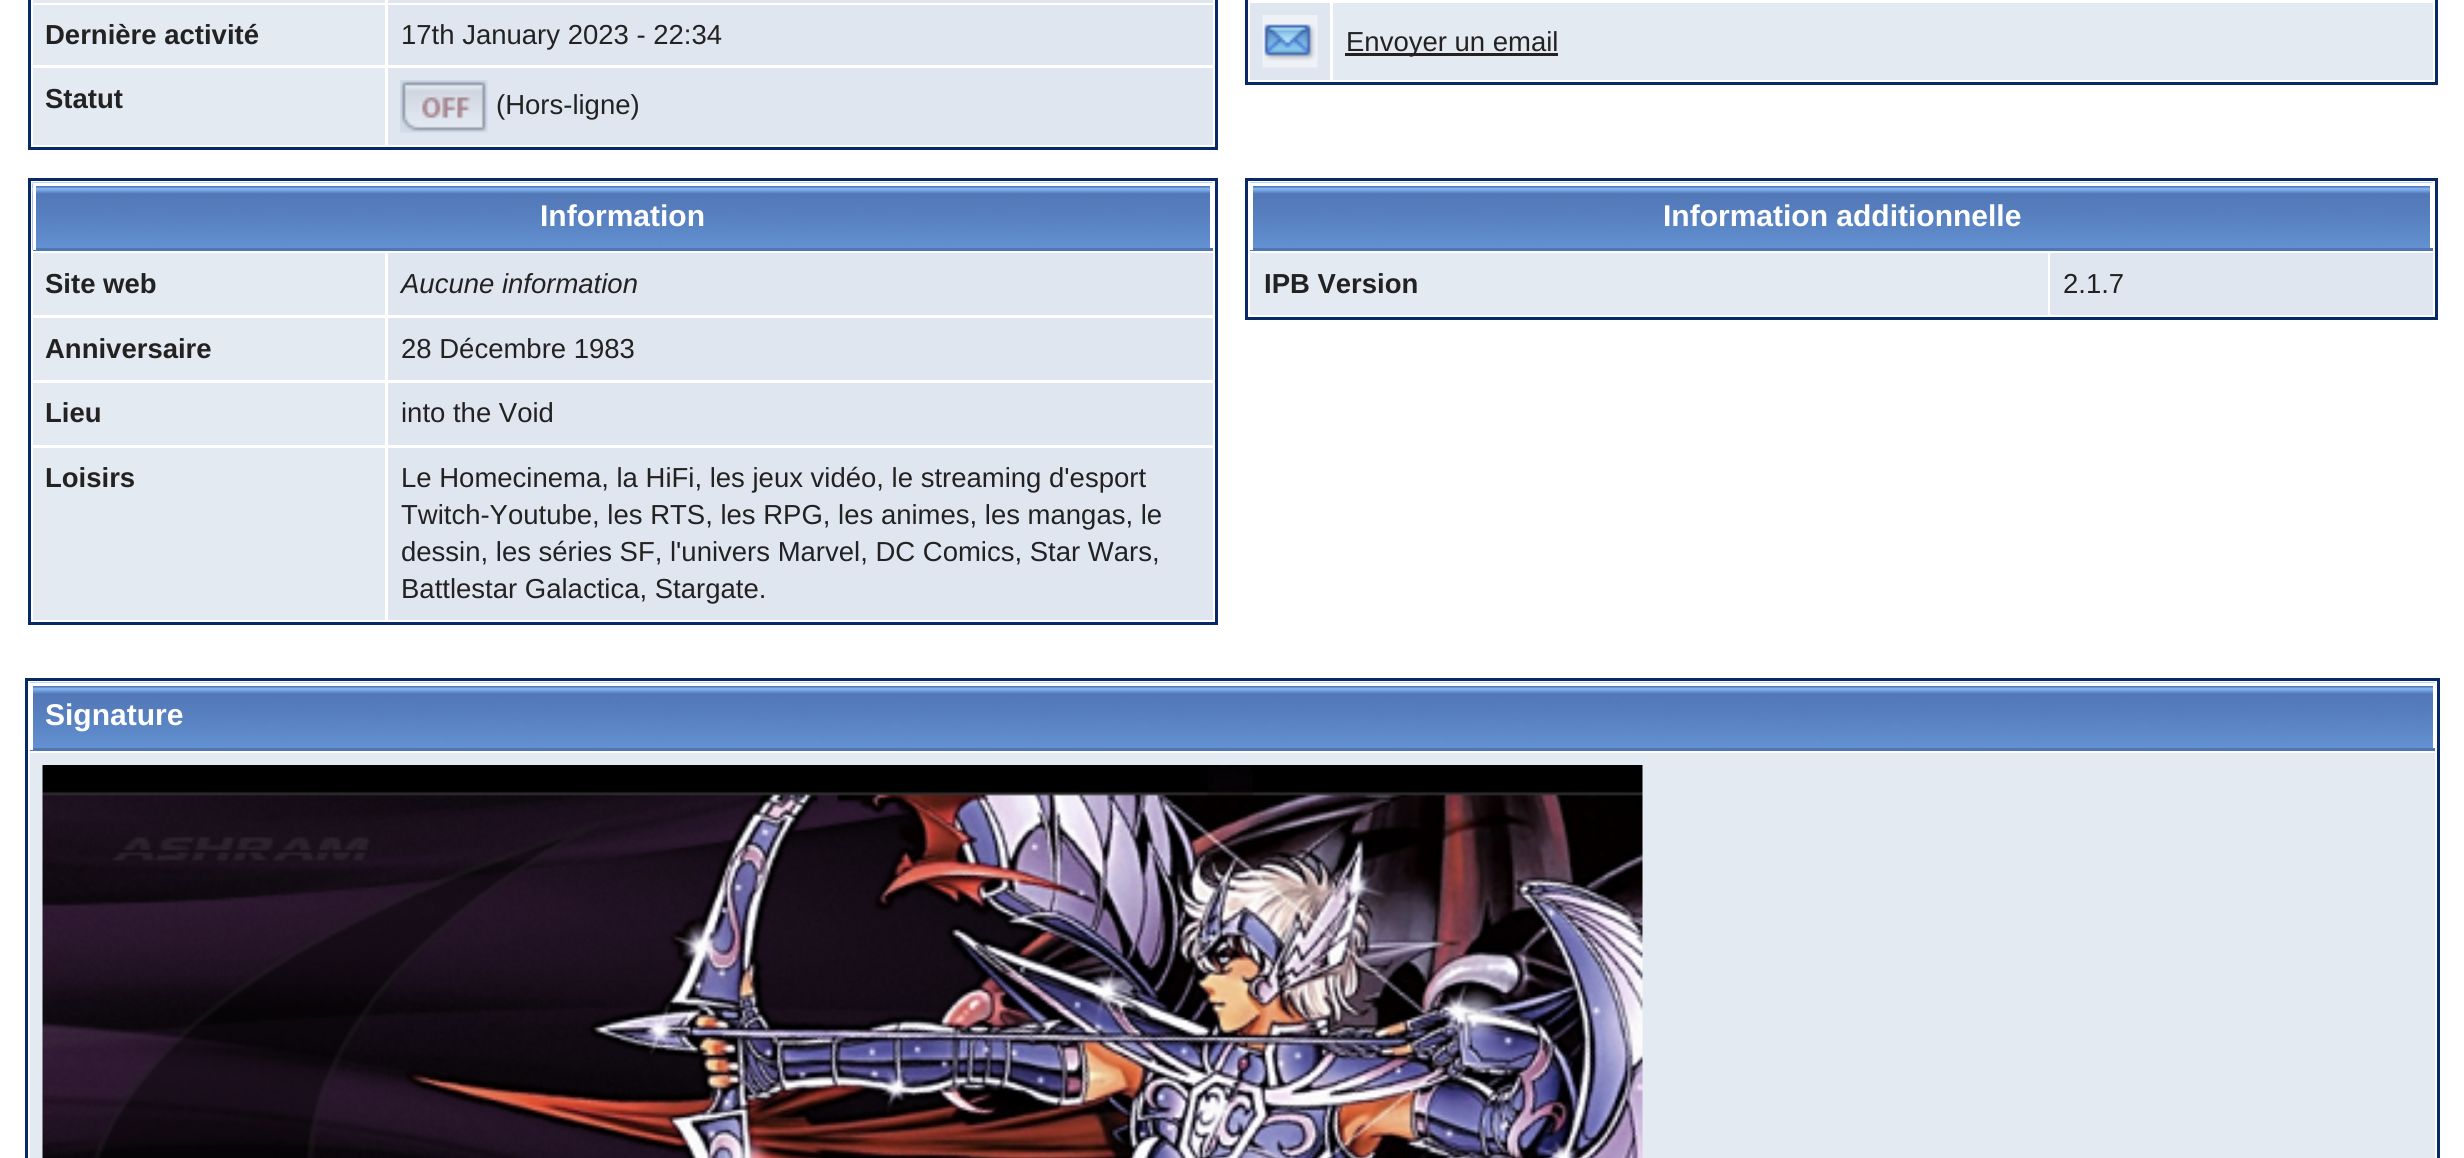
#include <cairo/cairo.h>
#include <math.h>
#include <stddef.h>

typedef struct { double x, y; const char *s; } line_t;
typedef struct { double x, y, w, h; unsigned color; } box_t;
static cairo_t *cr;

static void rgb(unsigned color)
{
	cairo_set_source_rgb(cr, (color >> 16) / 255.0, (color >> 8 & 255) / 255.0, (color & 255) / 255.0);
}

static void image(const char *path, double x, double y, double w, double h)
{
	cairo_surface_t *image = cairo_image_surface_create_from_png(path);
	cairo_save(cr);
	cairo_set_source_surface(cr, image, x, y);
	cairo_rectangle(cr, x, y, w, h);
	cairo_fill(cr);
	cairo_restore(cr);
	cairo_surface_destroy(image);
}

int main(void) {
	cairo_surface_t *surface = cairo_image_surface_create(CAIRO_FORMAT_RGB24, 2464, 1158);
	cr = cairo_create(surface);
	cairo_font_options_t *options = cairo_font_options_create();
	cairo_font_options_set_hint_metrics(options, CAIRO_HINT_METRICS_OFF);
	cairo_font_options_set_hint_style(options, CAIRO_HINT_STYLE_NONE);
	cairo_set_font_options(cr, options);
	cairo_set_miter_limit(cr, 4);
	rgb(0xffffff);
	cairo_paint(cr);
	cairo_rectangle(cr, 29.5, -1.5, 1187, 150);
	rgb(0x072a66);
	cairo_set_line_width(cr, 3);
	cairo_stroke(cr);
	{
		static const box_t items[] = {
			{33, 0, 352, 3, 0xe4eaf2},
			{388, 0, 825, 3, 0xdfe6ef},
			{33, 5, 352, 60, 0xe4eaf2},
			{388, 5, 825, 60, 0xdfe6ef},
			{33, 68, 352, 77, 0xe4eaf2},
			{388, 68, 825, 77, 0xdfe6ef},
		};
		for (size_t i = 0; i < sizeof items / sizeof *items; i++) {
			rgb(items[i].color);
			cairo_rectangle(cr, items[i].x, items[i].y, items[i].w, items[i].h);
			cairo_fill(cr);
		}
	}
	image("img/1.png", 400, 80, 88, 53);
	cairo_rectangle(cr, 1246.5, -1.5, 1190, 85);
	rgb(0x072a66);
	cairo_stroke(cr);
	rgb(0xdfe6ef);
	cairo_rectangle(cr, 1250, 3, 80, 77);
	cairo_fill(cr);
	image("img/2.png", 1262, 15, 56, 53);
	rgb(0xe4eaf2);
	cairo_rectangle(cr, 1333, 3, 1100, 77);
	cairo_fill(cr);
	rgb(0x222222);
	cairo_rectangle(cr, 1345, 53, 213, 3);
	cairo_fill(cr);
	cairo_rectangle(cr, 29.5, 179.5, 1187, 444);
	rgb(0x072a66);
	cairo_stroke(cr);
	image("img/3.png", 32, 182, 1181, 68);
	{
		static const box_t items[] = {
			{33, 183, 1180, 3, 0xffffff},
			{1210, 183, 3, 67, 0xffffff},
			{33, 248, 1180, 3, 0x5176b5},
			{33, 183, 3, 67, 0xffffff},
			{33, 253, 352, 62, 0xe4eaf2},
			{388, 253, 825, 62, 0xdfe6ef},
			{33, 318, 352, 62, 0xe4eaf2},
			{388, 318, 825, 62, 0xdfe6ef},
			{33, 383, 352, 62, 0xe4eaf2},
			{388, 383, 825, 62, 0xdfe6ef},
			{33, 448, 352, 172, 0xe4eaf2},
			{388, 448, 825, 172, 0xdfe6ef},
		};
		for (size_t i = 0; i < sizeof items / sizeof *items; i++) {
			rgb(items[i].color);
			cairo_rectangle(cr, items[i].x, items[i].y, items[i].w, items[i].h);
			cairo_fill(cr);
		}
	}
	cairo_rectangle(cr, 1246.5, 179.5, 1190, 139);
	rgb(0x072a66);
	cairo_stroke(cr);
	image("img/4.png", 1250, 182, 1183, 66);
	{
		static const box_t items[] = {
			{1250, 183, 1183, 3, 0xffffff},
			{2430, 183, 3, 67, 0xffffff},
			{1250, 248, 1183, 3, 0x5176b5},
			{1250, 183, 3, 67, 0xffffff},
			{1250, 253, 798, 62, 0xe4eaf2},
			{2050, 253, 383, 62, 0xdfe6ef},
		};
		for (size_t i = 0; i < sizeof items / sizeof *items; i++) {
			rgb(items[i].color);
			cairo_rectangle(cr, items[i].x, items[i].y, items[i].w, items[i].h);
			cairo_fill(cr);
		}
	}
	cairo_rectangle(cr, 26.5, 679.5, 2412, 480);
	rgb(0x072a66);
	cairo_stroke(cr);
	image("img/5.png", 30, 682, 2405, 66);
	{
		static const box_t items[] = {
			{30, 683, 2405, 3, 0xffffff},
			{2433, 683, 2, 67, 0xffffff},
			{30, 748, 2405, 3, 0x5176b5},
			{30, 683, 3, 67, 0xffffff},
			{30, 753, 2405, 405, 0xe4eaf2},
		};
		for (size_t i = 0; i < sizeof items / sizeof *items; i++) {
			rgb(items[i].color);
			cairo_rectangle(cr, items[i].x, items[i].y, items[i].w, items[i].h);
			cairo_fill(cr);
		}
	}
	image("img/6.png", 42, 765, 1601, 393);
	cairo_select_font_face(cr, "Liberation Sans", CAIRO_FONT_SLANT_NORMAL, CAIRO_FONT_WEIGHT_BOLD);
	cairo_set_font_size(cr, 27.5);
	rgb(0x222222);
	cairo_move_to(cr, 45, 44);
	cairo_show_text(cr, "Dernière activité");
	cairo_select_font_face(cr, "Liberation Sans", CAIRO_FONT_SLANT_NORMAL, CAIRO_FONT_WEIGHT_NORMAL);
	cairo_move_to(cr, 401, 44);
	cairo_show_text(cr, "17th January 2023 - 22:34");
	cairo_select_font_face(cr, "Liberation Sans", CAIRO_FONT_SLANT_NORMAL, CAIRO_FONT_WEIGHT_BOLD);
	cairo_move_to(cr, 45, 108);
	cairo_show_text(cr, "Statut");
	cairo_select_font_face(cr, "Liberation Sans", CAIRO_FONT_SLANT_NORMAL, CAIRO_FONT_WEIGHT_NORMAL);
	cairo_move_to(cr, 496, 114);
	cairo_show_text(cr, "(Hors-ligne)");
	cairo_move_to(cr, 1346, 51);
	cairo_show_text(cr, "Envoyer un email");
	cairo_select_font_face(cr, "Liberation Sans", CAIRO_FONT_SLANT_NORMAL, CAIRO_FONT_WEIGHT_BOLD);
	cairo_set_font_size(cr, 30);
	rgb(0xffffff);
	cairo_move_to(cr, 540, 226);
	cairo_show_text(cr, "Information");
	cairo_set_font_size(cr, 27.5);
	rgb(0x222222);
	cairo_move_to(cr, 45, 293);
	cairo_show_text(cr, "Site web");
	cairo_select_font_face(cr, "Liberation Sans", CAIRO_FONT_SLANT_ITALIC, CAIRO_FONT_WEIGHT_NORMAL);
	cairo_move_to(cr, 401, 293);
	cairo_show_text(cr, "Aucune information");
	cairo_select_font_face(cr, "Liberation Sans", CAIRO_FONT_SLANT_NORMAL, CAIRO_FONT_WEIGHT_BOLD);
	cairo_move_to(cr, 45, 358);
	cairo_show_text(cr, "Anniversaire");
	cairo_select_font_face(cr, "Liberation Sans", CAIRO_FONT_SLANT_NORMAL, CAIRO_FONT_WEIGHT_NORMAL);
	cairo_move_to(cr, 401, 358);
	cairo_show_text(cr, "28 Décembre 1983");
	cairo_select_font_face(cr, "Liberation Sans", CAIRO_FONT_SLANT_NORMAL, CAIRO_FONT_WEIGHT_BOLD);
	cairo_move_to(cr, 45, 422);
	cairo_show_text(cr, "Lieu");
	cairo_select_font_face(cr, "Liberation Sans", CAIRO_FONT_SLANT_NORMAL, CAIRO_FONT_WEIGHT_NORMAL);
	cairo_move_to(cr, 401, 422);
	cairo_show_text(cr, "into the Void");
	cairo_select_font_face(cr, "Liberation Sans", CAIRO_FONT_SLANT_NORMAL, CAIRO_FONT_WEIGHT_BOLD);
	cairo_move_to(cr, 45, 487);
	cairo_show_text(cr, "Loisirs");
	cairo_select_font_face(cr, "Liberation Sans", CAIRO_FONT_SLANT_NORMAL, CAIRO_FONT_WEIGHT_NORMAL);
	{
		static const line_t items[] = {
			{401, 487, "Le Homecinema, la HiFi, les jeux vidéo, le streaming d'esport"},
			{401, 524, "Twitch-Youtube, les RTS, les RPG, les animes, les mangas, le"},
			{401, 561, "dessin, les séries SF, l'univers Marvel, DC Comics, Star Wars,"},
			{401, 598, "Battlestar Galactica, Stargate."},
		};
		for (size_t i = 0; i < sizeof items / sizeof *items; i++) {
			cairo_move_to(cr, items[i].x, items[i].y);
			cairo_show_text(cr, items[i].s);
		}
	}
	cairo_select_font_face(cr, "Liberation Sans", CAIRO_FONT_SLANT_NORMAL, CAIRO_FONT_WEIGHT_BOLD);
	cairo_set_font_size(cr, 30);
	rgb(0xffffff);
	cairo_move_to(cr, 1663, 226);
	cairo_show_text(cr, "Information additionnelle");
	cairo_set_font_size(cr, 27.5);
	rgb(0x222222);
	cairo_move_to(cr, 1264, 293);
	cairo_show_text(cr, "IPB Version");
	cairo_select_font_face(cr, "Liberation Sans", CAIRO_FONT_SLANT_NORMAL, CAIRO_FONT_WEIGHT_NORMAL);
	cairo_move_to(cr, 2063, 293);
	cairo_show_text(cr, "2.1.7");
	cairo_select_font_face(cr, "Liberation Sans", CAIRO_FONT_SLANT_NORMAL, CAIRO_FONT_WEIGHT_BOLD);
	cairo_set_font_size(cr, 30);
	rgb(0xffffff);
	cairo_move_to(cr, 45, 725);
	cairo_show_text(cr, "Signature");
	cairo_surface_write_to_png(surface, "page.png");
	cairo_font_options_destroy(options);
	cairo_destroy(cr);
	cairo_surface_destroy(surface);
	return 0;
}
